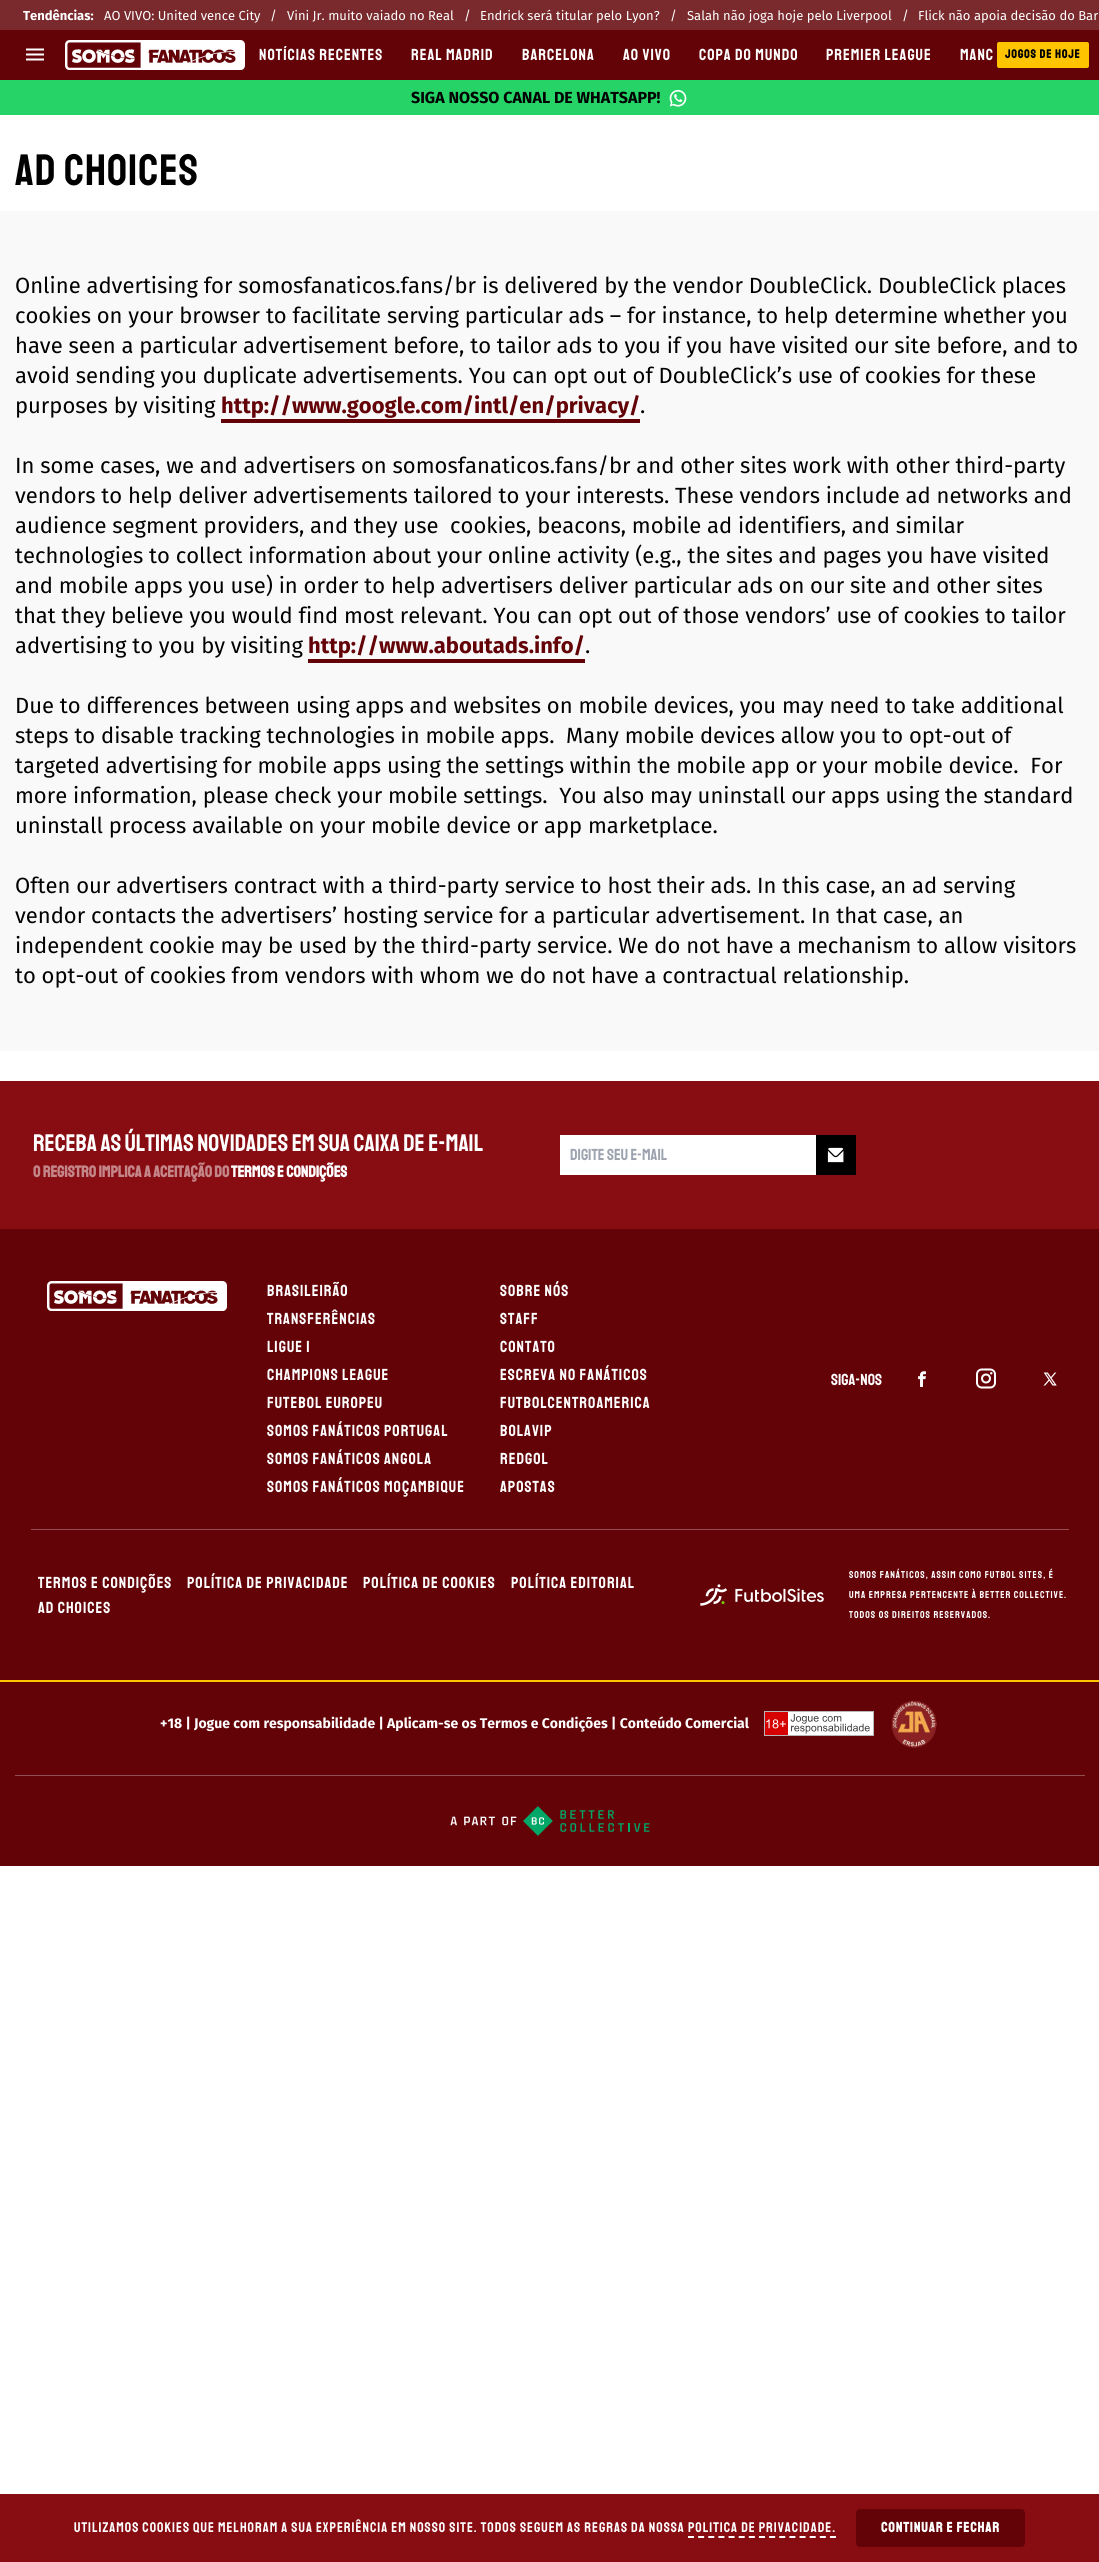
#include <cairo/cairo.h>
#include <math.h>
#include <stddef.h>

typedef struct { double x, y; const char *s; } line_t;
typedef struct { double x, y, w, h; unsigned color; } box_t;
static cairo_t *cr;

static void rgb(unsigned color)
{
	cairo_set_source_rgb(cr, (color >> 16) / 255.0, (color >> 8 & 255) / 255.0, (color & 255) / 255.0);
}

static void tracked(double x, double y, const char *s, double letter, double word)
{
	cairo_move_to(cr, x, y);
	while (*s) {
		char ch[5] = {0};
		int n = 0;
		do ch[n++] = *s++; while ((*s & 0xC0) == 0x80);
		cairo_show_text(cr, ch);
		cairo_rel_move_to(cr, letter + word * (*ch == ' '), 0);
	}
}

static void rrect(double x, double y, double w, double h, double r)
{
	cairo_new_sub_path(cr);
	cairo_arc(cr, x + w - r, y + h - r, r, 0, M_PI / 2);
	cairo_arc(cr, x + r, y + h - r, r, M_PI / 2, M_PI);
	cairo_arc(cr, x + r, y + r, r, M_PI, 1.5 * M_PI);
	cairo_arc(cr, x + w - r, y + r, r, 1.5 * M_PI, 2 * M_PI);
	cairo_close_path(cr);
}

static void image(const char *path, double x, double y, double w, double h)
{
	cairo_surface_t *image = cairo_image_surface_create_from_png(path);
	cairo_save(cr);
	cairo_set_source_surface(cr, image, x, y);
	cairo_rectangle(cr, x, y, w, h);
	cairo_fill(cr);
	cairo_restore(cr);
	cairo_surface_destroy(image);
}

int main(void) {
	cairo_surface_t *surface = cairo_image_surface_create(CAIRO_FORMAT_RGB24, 1099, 2562);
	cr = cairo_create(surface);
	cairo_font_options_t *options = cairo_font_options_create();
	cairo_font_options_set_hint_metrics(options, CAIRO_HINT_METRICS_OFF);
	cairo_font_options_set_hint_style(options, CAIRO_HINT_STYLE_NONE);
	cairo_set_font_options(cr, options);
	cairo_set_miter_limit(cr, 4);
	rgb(0xffffff);
	cairo_paint(cr);
	rgb(0x7a292d);
	cairo_rectangle(cr, 0, 0, 1099, 30);
	cairo_fill(cr);
	rgb(0x630308);
	cairo_rectangle(cr, 0, 30, 1099, 50);
	cairo_fill(cr);
	image("img/1.png", 26, 48, 18, 13);
	image("img/2.png", 65, 40, 180, 30);
	rgb(0xffc400);
	rrect(997, 42, 92, 26, 2);
	cairo_fill(cr);
	rgb(0x25d366);
	cairo_rectangle(cr, 0, 80, 1099, 35);
	cairo_fill(cr);
	image("img/3.png", 669, 89, 18, 18);
	{
		static const box_t items[] = {
			{0, 211, 1099, 840, 0xf9f9f9},
			{221, 419, 419, 4, 0x630308},
			{308, 659, 277, 4, 0x630308},
			{0, 1081, 1099, 148, 0x880d13},
			{560, 1135, 256, 40, 0xffffff},
			{816, 1135, 40, 40, 0x000000},
		};
		for (size_t i = 0; i < sizeof items / sizeof *items; i++) {
			rgb(items[i].color);
			cairo_rectangle(cr, items[i].x, items[i].y, items[i].w, items[i].h);
			cairo_fill(cr);
		}
	}
	image("img/4.png", 827, 1147, 17, 16);
	rgb(0x630308);
	cairo_rectangle(cr, 0, 1229, 1099, 451);
	cairo_fill(cr);
	rgb(0x924f52);
	cairo_rectangle(cr, 31, 1529, 1038, 1);
	cairo_fill(cr);
	image("img/2.png", 47, 1281, 180, 30);
	image("img/5.png", 918, 1371, 8, 16);
	image("img/6.png", 976, 1368, 20, 21);
	image("img/7.png", 1043, 1372, 14, 14);
	image("img/8.png", 700, 1584, 124, 22);
	rgb(0x630308);
	cairo_rectangle(cr, 0, 1682, 1099, 184);
	cairo_fill(cr);
	rgb(0xffc400);
	cairo_rectangle(cr, 0, 1680, 1099, 2);
	cairo_fill(cr);
	image("img/9.png", 764, 1711, 110, 25);
	image("img/10.png", 891, 1700, 46, 48);
	rgb(0x924f52);
	cairo_rectangle(cr, 15, 1775, 1070, 1);
	cairo_fill(cr);
	image("img/11.png", 450, 1806, 200, 30);
	rgb(0x880d13);
	cairo_rectangle(cr, 0, 2494, 1099, 68);
	cairo_fill(cr);
	cairo_new_path(cr);
	cairo_move_to(cr, 688, 2537);
	cairo_line_to(cr, 836, 2537);
	rgb(0xffffff);
	cairo_set_dash(cr, (double[]){6, 4.14}, 2, 0);
	cairo_stroke(cr);
	rgb(0x630308);
	rrect(856, 2509, 169, 38, 4);
	cairo_fill(cr);
	cairo_select_font_face(cr, "Fira Sans", CAIRO_FONT_SLANT_NORMAL, CAIRO_FONT_WEIGHT_BOLD);
	cairo_set_font_size(cr, 13);
	rgb(0xffffff);
	cairo_move_to(cr, 23, 20);
	cairo_show_text(cr, "Tendências:");
	cairo_select_font_face(cr, "Fira Sans", CAIRO_FONT_SLANT_NORMAL, CAIRO_FONT_WEIGHT_NORMAL);
	{
		static const line_t items[] = {
			{104, 20, "AO VIVO: United vence City"},
			{270, 20, "/"},
			{287, 20, "Vini Jr. muito vaiado no Real"},
			{464, 20, "/"},
			{480, 20, "Endrick será titular pelo Lyon?"},
			{670, 20, "/"},
			{687, 20, "Salah não joga hoje pelo Liverpool"},
			{902, 20, "/"},
			{918, 20, "Flick não apoia decisão do Bar"},
		};
		for (size_t i = 0; i < sizeof items / sizeof *items; i++) {
			cairo_move_to(cr, items[i].x, items[i].y);
			cairo_show_text(cr, items[i].s);
		}
	}
	cairo_save(cr);
	cairo_rectangle(cr, 245, 46, 752, 18);
	cairo_clip(cr);
	cairo_select_font_face(cr, "Staatliches", CAIRO_FONT_SLANT_NORMAL, CAIRO_FONT_WEIGHT_NORMAL);
	cairo_set_font_size(cr, 16);
	tracked(259, 60, "NOTÍCIAS RECENTES", 1, 0);
	cairo_restore(cr);
	cairo_select_font_face(cr, "Staatliches", CAIRO_FONT_SLANT_NORMAL, CAIRO_FONT_WEIGHT_NORMAL);
	cairo_set_font_size(cr, 16);
	{
		static const line_t items[] = {
			{411, 60, "REAL MADRID"},
			{522, 60, "BARCELONA"},
			{623, 60, "AO VIVO"},
			{699, 60, "COPA DO MUNDO"},
			{826, 60, "PREMIER LEAGUE"},
			{960, 60, "MANC"},
		};
		for (size_t i = 0; i < sizeof items / sizeof *items; i++) {
			tracked(items[i].x, items[i].y, items[i].s, 1, 0);
		}
	}
	cairo_select_font_face(cr, "Staatliches", CAIRO_FONT_SLANT_NORMAL, CAIRO_FONT_WEIGHT_BOLD);
	cairo_set_font_size(cr, 12);
	rgb(0x000000);
	tracked(1005, 58, "JOGOS DE HOJE", 1, 0);
	cairo_select_font_face(cr, "Fira Sans", CAIRO_FONT_SLANT_NORMAL, CAIRO_FONT_WEIGHT_BOLD);
	cairo_set_font_size(cr, 16);
	cairo_move_to(cr, 411, 103);
	cairo_show_text(cr, "SIGA NOSSO CANAL DE WHATSAPP!");
	cairo_select_font_face(cr, "Staatliches", CAIRO_FONT_SLANT_NORMAL, CAIRO_FONT_WEIGHT_NORMAL);
	cairo_set_font_size(cr, 44);
	tracked(15, 185, "AD CHOICES", 1, 0);
	cairo_select_font_face(cr, "Fira Sans", CAIRO_FONT_SLANT_NORMAL, CAIRO_FONT_WEIGHT_NORMAL);
	cairo_set_font_size(cr, 22);
	{
		static const line_t items[] = {
			{15, 293, "Online advertising for somosfanaticos.fans/br is delivered by the vendor DoubleClick. DoubleClick places"},
			{15, 323, "cookies on your browser to facilitate serving particular ads – for instance, to help determine whether you"},
			{15, 353, "have seen a particular advertisement before, to tailor ads to you if you have visited our site before, and to"},
			{15, 383, "avoid sending you duplicate advertisements. You can opt out of DoubleClick’s use of cookies for these"},
			{15, 413, "purposes by visiting"},
		};
		for (size_t i = 0; i < sizeof items / sizeof *items; i++) {
			cairo_move_to(cr, items[i].x, items[i].y);
			cairo_show_text(cr, items[i].s);
		}
	}
	cairo_select_font_face(cr, "Fira Sans", CAIRO_FONT_SLANT_NORMAL, CAIRO_FONT_WEIGHT_BOLD);
	rgb(0x630308);
	cairo_move_to(cr, 221, 413);
	cairo_show_text(cr, "http://www.google.com/intl/en/privacy/");
	cairo_select_font_face(cr, "Fira Sans", CAIRO_FONT_SLANT_NORMAL, CAIRO_FONT_WEIGHT_NORMAL);
	rgb(0x000000);
	{
		static const line_t items[] = {
			{640, 413, "."},
			{15, 473, "In some cases, we and advertisers on somosfanaticos.fans/br and other sites work with other third-party"},
			{15, 503, "vendors to help deliver advertisements tailored to your interests. These vendors include ad networks and"},
			{15, 533, "audience segment providers, and they use  cookies, beacons, mobile ad identifiers, and similar"},
			{15, 563, "technologies to collect information about your online activity (e.g., the sites and pages you have visited"},
			{15, 593, "and mobile apps you use) in order to help advertisers deliver particular ads on our site and other sites"},
			{15, 623, "that they believe you would find most relevant. You can opt out of those vendors’ use of cookies to tailor"},
			{15, 653, "advertising to you by visiting"},
		};
		for (size_t i = 0; i < sizeof items / sizeof *items; i++) {
			cairo_move_to(cr, items[i].x, items[i].y);
			cairo_show_text(cr, items[i].s);
		}
	}
	cairo_select_font_face(cr, "Fira Sans", CAIRO_FONT_SLANT_NORMAL, CAIRO_FONT_WEIGHT_BOLD);
	rgb(0x630308);
	cairo_move_to(cr, 308, 653);
	cairo_show_text(cr, "http://www.aboutads.info/");
	cairo_select_font_face(cr, "Fira Sans", CAIRO_FONT_SLANT_NORMAL, CAIRO_FONT_WEIGHT_NORMAL);
	rgb(0x000000);
	{
		static const line_t items[] = {
			{585, 653, "."},
			{15, 713, "Due to differences between using apps and websites on mobile devices, you may need to take additional"},
			{15, 743, "steps to disable tracking technologies in mobile apps.  Many mobile devices allow you to opt-out of"},
			{15, 773, "targeted advertising for mobile apps using the settings within the mobile app or your mobile device.  For"},
			{15, 803, "more information, please check your mobile settings.  You also may uninstall our apps using the standard"},
			{15, 833, "uninstall process available on your mobile device or app marketplace."},
			{15, 893, "Often our advertisers contract with a third-party service to host their ads. In this case, an ad serving"},
			{15, 923, "vendor contacts the advertisers’ hosting service for a particular advertisement. In that case, an"},
			{15, 953, "independent cookie may be used by the third-party service. We do not have a mechanism to allow visitors"},
			{15, 983, "to opt-out of cookies from vendors with whom we do not have a contractual relationship."},
		};
		for (size_t i = 0; i < sizeof items / sizeof *items; i++) {
			cairo_move_to(cr, items[i].x, items[i].y);
			cairo_show_text(cr, items[i].s);
		}
	}
	cairo_select_font_face(cr, "Staatliches", CAIRO_FONT_SLANT_NORMAL, CAIRO_FONT_WEIGHT_NORMAL);
	cairo_set_font_size(cr, 24);
	rgb(0xffffff);
	cairo_move_to(cr, 33, 1151);
	cairo_show_text(cr, "Receba as últimas novidades em sua caixa de e-mail");
	cairo_select_font_face(cr, "Staatliches", CAIRO_FONT_SLANT_NORMAL, CAIRO_FONT_WEIGHT_BOLD);
	cairo_set_font_size(cr, 16);
	rgb(0xc48689);
	cairo_move_to(cr, 33, 1177);
	cairo_show_text(cr, "O registro implica a aceitação do");
	rgb(0xffffff);
	cairo_move_to(cr, 231, 1177);
	cairo_show_text(cr, "Termos e Condições");
	cairo_select_font_face(cr, "Staatliches", CAIRO_FONT_SLANT_NORMAL, CAIRO_FONT_WEIGHT_NORMAL);
	rgb(0x9ca3af);
	cairo_move_to(cr, 570, 1160);
	cairo_show_text(cr, "Digite seu e-mail");
	rgb(0xffffff);
	{
		static const line_t items[] = {
			{267, 1296, "BRASILEIRÃO"},
			{267, 1324, "TRANSFERÊNCIAS"},
			{267, 1352, "LIGUE 1"},
			{267, 1380, "CHAMPIONS LEAGUE"},
			{267, 1408, "FUTEBOL EUROPEU"},
			{267, 1436, "SOMOS FANÁTICOS PORTUGAL"},
			{267, 1464, "SOMOS FANÁTICOS ANGOLA"},
			{267, 1492, "SOMOS FANÁTICOS MOÇAMBIQUE"},
			{500, 1296, "SOBRE NÓS"},
			{500, 1324, "STAFF"},
			{500, 1352, "CONTATO"},
			{500, 1380, "ESCREVA NO FANÁTICOS"},
			{500, 1408, "FUTBOLCENTROAMERICA"},
			{500, 1436, "BOLAVIP"},
			{500, 1464, "REDGOL"},
			{500, 1492, "APOSTAS"},
		};
		for (size_t i = 0; i < sizeof items / sizeof *items; i++) {
			tracked(items[i].x, items[i].y, items[i].s, 1, 0);
		}
	}
	cairo_move_to(cr, 831, 1385);
	cairo_show_text(cr, "SIGA-NOS");
	{
		static const line_t items[] = {
			{38, 1588, "TERMOS E CONDIÇÕES"},
			{187, 1588, "POLÍTICA DE PRIVACIDADE"},
			{363, 1588, "POLÍTICA DE COOKIES"},
			{511, 1588, "POLÍTICA EDITORIAL"},
			{38, 1613, "AD CHOICES"},
		};
		for (size_t i = 0; i < sizeof items / sizeof *items; i++) {
			tracked(items[i].x, items[i].y, items[i].s, 1, 0);
		}
	}
	cairo_set_font_size(cr, 10);
	{
		static const line_t items[] = {
			{849, 1578, "Somos Fanáticos, assim como Futbol Sites, é"},
			{849, 1598, "uma empresa pertencente à Better Collective."},
			{849, 1618, "Todos os direitos reservados."},
		};
		for (size_t i = 0; i < sizeof items / sizeof *items; i++) {
			tracked(items[i].x, items[i].y, items[i].s, 1, 0);
		}
	}
	cairo_select_font_face(cr, "Fira Sans", CAIRO_FONT_SLANT_NORMAL, CAIRO_FONT_WEIGHT_BOLD);
	cairo_set_font_size(cr, 14);
	cairo_move_to(cr, 160, 1728);
	cairo_show_text(cr, "+18 | Jogue com responsabilidade | Aplicam-se os Termos e Condições | Conteúdo Comercial");
	cairo_select_font_face(cr, "Staatliches", CAIRO_FONT_SLANT_NORMAL, CAIRO_FONT_WEIGHT_NORMAL);
	tracked(74, 2532, "Utilizamos cookies que melhoram a sua experiência em nosso site. Todos seguem as regras da nossa Politica de Privacidade.", 1, 0);
	cairo_select_font_face(cr, "Staatliches", CAIRO_FONT_SLANT_NORMAL, CAIRO_FONT_WEIGHT_BOLD);
	tracked(881, 2532, "CONTINUAR E FECHAR", 1, 0);
	cairo_surface_write_to_png(surface, "page.png");
	cairo_font_options_destroy(options);
	cairo_destroy(cr);
	cairo_surface_destroy(surface);
	return 0;
}
